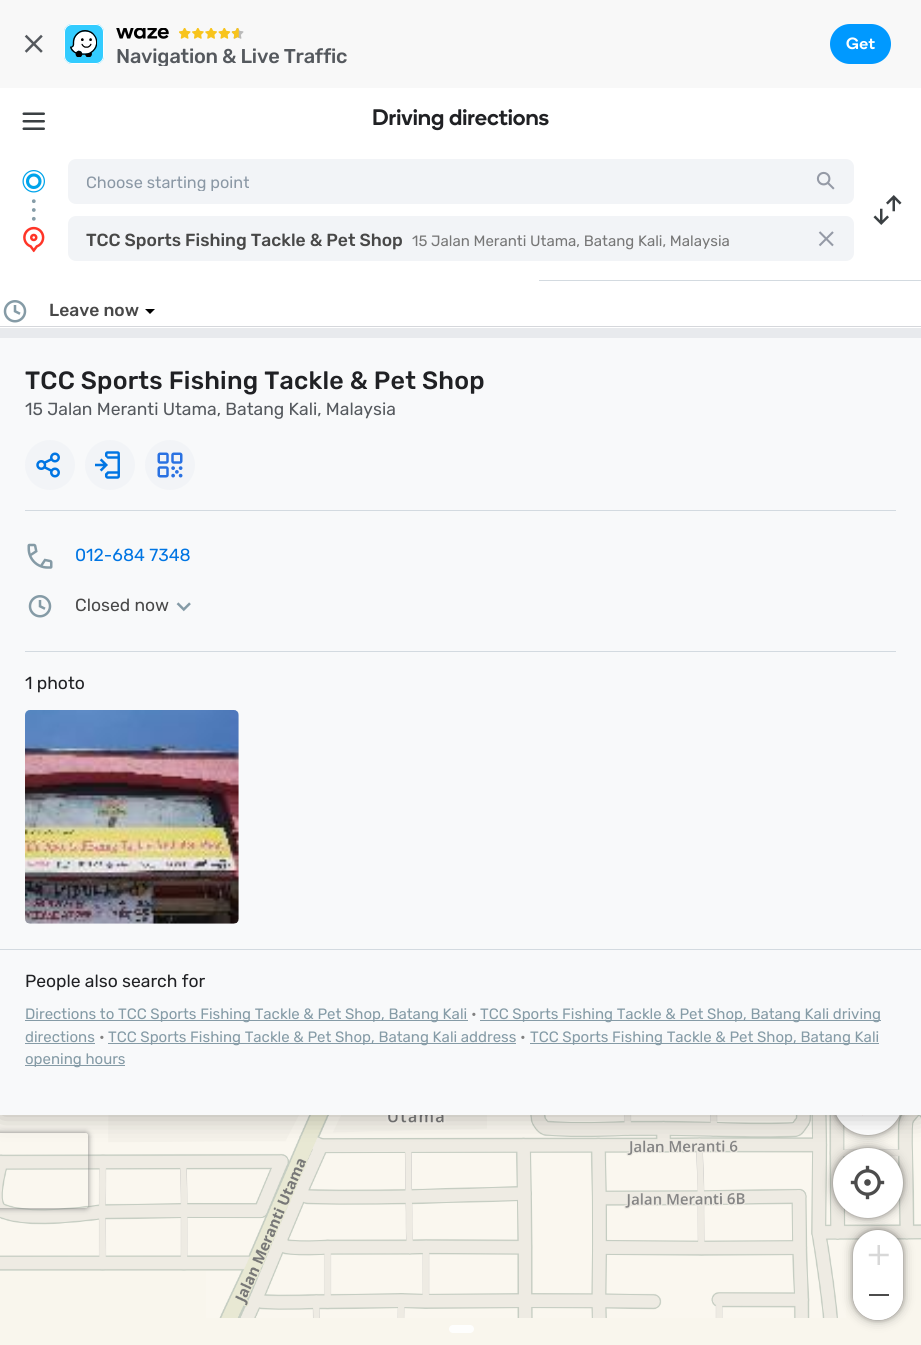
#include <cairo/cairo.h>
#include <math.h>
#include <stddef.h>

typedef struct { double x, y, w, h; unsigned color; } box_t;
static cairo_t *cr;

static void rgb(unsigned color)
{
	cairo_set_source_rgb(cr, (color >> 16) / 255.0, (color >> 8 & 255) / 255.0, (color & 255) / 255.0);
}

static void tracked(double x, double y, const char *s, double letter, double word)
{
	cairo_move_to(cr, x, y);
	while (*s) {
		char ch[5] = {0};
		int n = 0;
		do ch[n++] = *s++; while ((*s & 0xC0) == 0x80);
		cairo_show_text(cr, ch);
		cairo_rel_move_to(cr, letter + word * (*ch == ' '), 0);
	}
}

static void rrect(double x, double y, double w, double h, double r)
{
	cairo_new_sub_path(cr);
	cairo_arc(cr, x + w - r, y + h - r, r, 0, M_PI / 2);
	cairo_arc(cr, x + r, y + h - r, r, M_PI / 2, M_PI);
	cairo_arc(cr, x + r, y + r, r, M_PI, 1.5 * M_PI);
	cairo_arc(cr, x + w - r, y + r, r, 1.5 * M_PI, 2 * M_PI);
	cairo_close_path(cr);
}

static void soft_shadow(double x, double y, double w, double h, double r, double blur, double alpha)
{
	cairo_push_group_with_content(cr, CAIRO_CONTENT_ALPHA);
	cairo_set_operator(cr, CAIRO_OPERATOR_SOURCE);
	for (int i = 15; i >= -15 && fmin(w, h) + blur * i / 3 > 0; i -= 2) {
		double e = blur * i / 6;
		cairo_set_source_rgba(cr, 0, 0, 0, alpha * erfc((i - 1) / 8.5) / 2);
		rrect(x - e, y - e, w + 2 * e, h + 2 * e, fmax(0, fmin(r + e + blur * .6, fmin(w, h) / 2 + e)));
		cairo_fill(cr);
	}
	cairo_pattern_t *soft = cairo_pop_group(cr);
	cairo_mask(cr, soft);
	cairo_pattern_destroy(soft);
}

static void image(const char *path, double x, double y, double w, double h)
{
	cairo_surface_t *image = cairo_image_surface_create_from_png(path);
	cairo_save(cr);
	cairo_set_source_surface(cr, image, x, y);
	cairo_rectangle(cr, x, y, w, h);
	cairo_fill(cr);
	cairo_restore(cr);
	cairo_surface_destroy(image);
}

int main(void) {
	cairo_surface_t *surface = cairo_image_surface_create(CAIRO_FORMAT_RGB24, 921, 1345);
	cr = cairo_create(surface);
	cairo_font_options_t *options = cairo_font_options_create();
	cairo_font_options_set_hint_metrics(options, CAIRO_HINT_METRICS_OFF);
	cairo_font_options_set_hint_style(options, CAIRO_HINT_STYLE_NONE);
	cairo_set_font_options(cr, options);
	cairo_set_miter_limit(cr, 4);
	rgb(0xf9f6ed);
	cairo_paint(cr);
	image("img/24.png", 526, 1115, 320, 203);
	image("img/25.png", 846, 1115, 75, 125);
	rgb(0x000000);
	soft_shadow(833, 1065, 70, 70, 35, 6, 0.3);
	soft_shadow(833, 1065, 70, 70, 35, 2.5, 0.3);
	rgb(0xffffff);
	cairo_arc(cr, 868, 1100, 35, 0, 2 * M_PI);
	cairo_fill(cr);
	image("img/19.png", 862, 1115, 1, 1);
	rgb(0x000000);
	soft_shadow(833, 1148, 70, 70, 35, 6, 0.3);
	soft_shadow(833, 1148, 70, 70, 35, 2.5, 0.3);
	rgb(0xffffff);
	cairo_arc(cr, 868, 1183, 35, 0, 2 * M_PI);
	cairo_fill(cr);
	image("img/22.png", 0, 1115, 206, 156);
	image("img/23.png", 206, 1115, 320, 203);
	rgb(0x000000);
	soft_shadow(0, 88, 921, 1027, 0, 12.5, 0.3);
	rgb(0xf8f8f8);
	cairo_rectangle(cr, 0, 0, 921, 88);
	cairo_fill(cr);
	image("img/1.png", 24, 34, 19, 19);
	rgb(0x0099ff);
	rrect(830, 24, 61, 40, 20);
	cairo_fill(cr);
	rgb(0x33ccff);
	rrect(64, 24, 40, 40, 8);
	cairo_fill(cr);
	image("img/2.png", 70, 30, 27, 28);
	rrect(64.5, 24.5, 39, 39, 7.5);
	rgb(0xffffff);
	cairo_set_line_width(cr, 1);
	cairo_stroke(cr);
	image("img/3.png", 116, 28, 53, 11);
	image("img/4.png", 179, 28, 65, 11);
	cairo_rectangle(cr, 0, 88, 921, 240);
	cairo_fill(cr);
	image("img/5.png", 22, 112, 23, 18);
	rgb(0x869ca7);
	cairo_arc(cr, 33.8, 201.2, 1.9, 0, 2 * M_PI);
	cairo_fill(cr);
	cairo_arc(cr, 33.8, 210, 1.9, 0, 2 * M_PI);
	cairo_fill(cr);
	cairo_arc(cr, 33.8, 218.8, 1.9, 0, 2 * M_PI);
	cairo_fill(cr);
	image("img/6.png", 22, 170, 23, 23);
	rgb(0xf2f4f7);
	rrect(68, 159, 786, 45, 8);
	cairo_fill(cr);
	image("img/7.png", 816, 171, 19, 19);
	image("img/8.png", 873, 195, 29, 30);
	image("img/9.png", 23, 226, 22, 27);
	rrect(68, 216, 786, 45, 8);
	cairo_fill(cr);
	image("img/10.png", 818, 231, 16, 16);
	rgb(0xd3dae0);
	cairo_rectangle(cr, 539, 280, 382, 1);
	cairo_fill(cr);
	image("img/11.png", 3, 300, 24, 23);
	rgb(0x000000);
	cairo_new_path(cr);
	cairo_move_to(cr, 145, 309);
	cairo_line_to(cr, 155, 309);
	cairo_line_to(cr, 150, 314);
	cairo_close_path(cr);
	cairo_fill(cr);
	{
		static const box_t items[] = {
			{0, 326, 921, 1, 0xd5d7db},
			{0, 338, 921, 611, 0xf8f9fa},
			{0, 328, 921, 10, 0xe8eaed},
			{25, 510, 871, 1, 0xd3dae0},
		};
		for (size_t i = 0; i < sizeof items / sizeof *items; i++) {
			rgb(items[i].color);
			cairo_rectangle(cr, items[i].x, items[i].y, items[i].w, items[i].h);
			cairo_fill(cr);
		}
	}
	rgb(0xf2f4f7);
	cairo_arc(cr, 50, 465, 25, 0, 2 * M_PI);
	cairo_fill(cr);
	image("img/12.png", 36, 452, 24, 26);
	cairo_arc(cr, 110, 465, 25, 0, 2 * M_PI);
	cairo_fill(cr);
	image("img/13.png", 95, 451, 25, 28);
	cairo_arc(cr, 170, 465, 25, 0, 2 * M_PI);
	cairo_fill(cr);
	image("img/14.png", 157, 452, 26, 26);
	rgb(0xd3dae0);
	cairo_rectangle(cr, 25, 651, 871, 1);
	cairo_fill(cr);
	image("img/15.png", 27, 543, 26, 26);
	image("img/16.png", 28, 595, 24, 23);
	image("img/17.png", 176, 602, 15, 10);
	image("img/18.png", 25, 710, 214, 214);
	{
		static const box_t items[] = {
			{0, 950, 921, 165, 0xf8f9fa},
			{0, 949, 921, 1, 0xd3dae0},
			{25, 1020, 443, 1, 0x859ba6},
			{480, 1020, 401, 1, 0x859ba6},
			{25, 1043, 70, 1, 0x859ba6},
			{108, 1043, 408, 1, 0x859ba6},
			{530, 1043, 349, 1, 0x859ba6},
			{25, 1065, 100, 1, 0x859ba6},
		};
		for (size_t i = 0; i < sizeof items / sizeof *items; i++) {
			rgb(items[i].color);
			cairo_rectangle(cr, items[i].x, items[i].y, items[i].w, items[i].h);
			cairo_fill(cr);
		}
	}
	image("img/20.png", 850, 1165, 35, 35);
	rgb(0xfefefd);
	rrect(449, 1325, 25, 8, 4);
	cairo_fill(cr);
	rgb(0x000000);
	soft_shadow(853, 1230, 50, 90, 25, 6, 0.3);
	soft_shadow(853, 1230, 50, 90, 25, 2.5, 0.3);
	rgb(0xffffff);
	rrect(853, 1230, 50, 90, 25);
	cairo_fill(cr);
	image("img/21.png", 868, 1245, 21, 20);
	cairo_new_path(cr);
	cairo_move_to(cr, 853, 1275);
	cairo_line_to(cr, 903, 1275);
	cairo_line_to(cr, 903, 1295);
	cairo_curve_to(cr, 903, 1309, 892, 1320, 878, 1320);
	cairo_curve_to(cr, 864, 1320, 853, 1309, 853, 1295);
	cairo_close_path(cr);
	cairo_fill(cr);
	rgb(0x4c4c4c);
	cairo_rectangle(cr, 869, 1294, 20, 2);
	cairo_fill(cr);
	cairo_save(cr);
	cairo_set_fill_rule(cr, CAIRO_FILL_RULE_EVEN_ODD);
	cairo_new_path(cr);
	cairo_move_to(cr, 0, 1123);
	cairo_line_to(cr, 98, 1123);
	cairo_line_to(cr, 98, 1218);
	cairo_line_to(cr, 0, 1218);
	cairo_close_path(cr);
	cairo_move_to(cr, -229.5, 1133);
	cairo_line_to(cr, 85.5, 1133);
	cairo_curve_to(cr, 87, 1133, 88, 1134, 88, 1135.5);
	cairo_line_to(cr, 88, 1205.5);
	cairo_curve_to(cr, 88, 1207, 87, 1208, 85.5, 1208);
	cairo_line_to(cr, -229.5, 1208);
	cairo_curve_to(cr, -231, 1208, -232, 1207, -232, 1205.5);
	cairo_line_to(cr, -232, 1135.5);
	cairo_curve_to(cr, -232, 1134, -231, 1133, -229.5, 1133);
	cairo_close_path(cr);
	cairo_clip(cr);
	rgb(0x808080);
	soft_shadow(-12, 1133, 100, 75, 2.5, 3, 1);
	cairo_restore(cr);
	cairo_select_font_face(cr, "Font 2 Medium", CAIRO_FONT_SLANT_NORMAL, CAIRO_FONT_WEIGHT_NORMAL);
	cairo_set_font_size(cr, 16.25);
	rgb(0xffffff);
	tracked(846, 49, "Get", 0.5, 0);
	cairo_save(cr);
	cairo_rectangle(cr, 116, 46, 699, 20);
	cairo_clip(cr);
	cairo_select_font_face(cr, "Rubik Medium", CAIRO_FONT_SLANT_NORMAL, CAIRO_FONT_WEIGHT_NORMAL);
	cairo_set_font_size(cr, 20);
	rgb(0x55595e);
	tracked(116, 63, "Navigation & Live Traffic", -0.25, 0);
	cairo_restore(cr);
	cairo_select_font_face(cr, "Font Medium", CAIRO_FONT_SLANT_NORMAL, CAIRO_FONT_WEIGHT_NORMAL);
	cairo_set_font_size(cr, 22.5);
	rgb(0x202124);
	cairo_move_to(cr, 372, 125);
	cairo_show_text(cr, "Driving directions");
	cairo_save(cr);
	cairo_rectangle(cr, 86, 173, 753, 18);
	cairo_clip(cr);
	cairo_select_font_face(cr, "Rubik", CAIRO_FONT_SLANT_NORMAL, CAIRO_FONT_WEIGHT_NORMAL);
	cairo_set_font_size(cr, 16.25);
	rgb(0x8b98a5);
	cairo_move_to(cr, 86, 188);
	cairo_show_text(cr, "Choose starting point");
	cairo_restore(cr);
	cairo_select_font_face(cr, "Rubik Medium", CAIRO_FONT_SLANT_NORMAL, CAIRO_FONT_WEIGHT_NORMAL);
	cairo_set_font_size(cr, 17.5);
	rgb(0x484848);
	cairo_move_to(cr, 86, 246);
	cairo_show_text(cr, "TCC Sports Fishing Tackle & Pet Shop");
	cairo_select_font_face(cr, "Rubik", CAIRO_FONT_SLANT_NORMAL, CAIRO_FONT_WEIGHT_NORMAL);
	cairo_set_font_size(cr, 15);
	rgb(0x777777);
	cairo_move_to(cr, 412, 246);
	cairo_show_text(cr, "15 Jalan Meranti Utama, Batang Kali, Malaysia");
	cairo_select_font_face(cr, "Rubik Medium", CAIRO_FONT_SLANT_NORMAL, CAIRO_FONT_WEIGHT_NORMAL);
	cairo_set_font_size(cr, 17.5);
	rgb(0x484848);
	cairo_move_to(cr, 49, 316);
	cairo_show_text(cr, "Leave now");
	cairo_set_font_size(cr, 25);
	rgb(0x202124);
	tracked(25, 389, "TCC Sports Fishing Tackle & Pet Shop", 0.2, 0);
	cairo_select_font_face(cr, "Rubik", CAIRO_FONT_SLANT_NORMAL, CAIRO_FONT_WEIGHT_NORMAL);
	cairo_set_font_size(cr, 17.5);
	rgb(0x55595e);
	cairo_move_to(cr, 25, 415);
	cairo_show_text(cr, "15 Jalan Meranti Utama, Batang Kali, Malaysia");
	rgb(0x0075e3);
	cairo_move_to(cr, 75, 561);
	cairo_show_text(cr, "012-684 7348");
	rgb(0x484848);
	cairo_move_to(cr, 75, 611);
	cairo_show_text(cr, "Closed now");
	rgb(0x202124);
	cairo_move_to(cr, 25, 689);
	cairo_show_text(cr, "1 photo");
	cairo_move_to(cr, 25, 987);
	cairo_show_text(cr, "People also search for");
	cairo_set_font_size(cr, 15);
	rgb(0x859ba6);
	cairo_move_to(cr, 25, 1019);
	cairo_show_text(cr, "Directions to TCC Sports Fishing Tackle & Pet Shop, Batang Kali");
	rgb(0x818181);
	cairo_move_to(cr, 471, 1019);
	cairo_show_text(cr, "•");
	rgb(0x859ba6);
	cairo_move_to(cr, 480, 1019);
	cairo_show_text(cr, "TCC Sports Fishing Tackle & Pet Shop, Batang Kali driving");
	cairo_move_to(cr, 25, 1042);
	cairo_show_text(cr, "directions");
	rgb(0x818181);
	cairo_move_to(cr, 99, 1042);
	cairo_show_text(cr, "•");
	rgb(0x859ba6);
	cairo_move_to(cr, 108, 1042);
	cairo_show_text(cr, "TCC Sports Fishing Tackle & Pet Shop, Batang Kali address");
	rgb(0x818181);
	cairo_move_to(cr, 520, 1042);
	cairo_show_text(cr, "•");
	rgb(0x859ba6);
	cairo_move_to(cr, 530, 1042);
	cairo_show_text(cr, "TCC Sports Fishing Tackle & Pet Shop, Batang Kali");
	cairo_move_to(cr, 25, 1064);
	cairo_show_text(cr, "opening hours");
	cairo_surface_write_to_png(surface, "page.png");
	cairo_font_options_destroy(options);
	cairo_destroy(cr);
	cairo_surface_destroy(surface);
	return 0;
}
